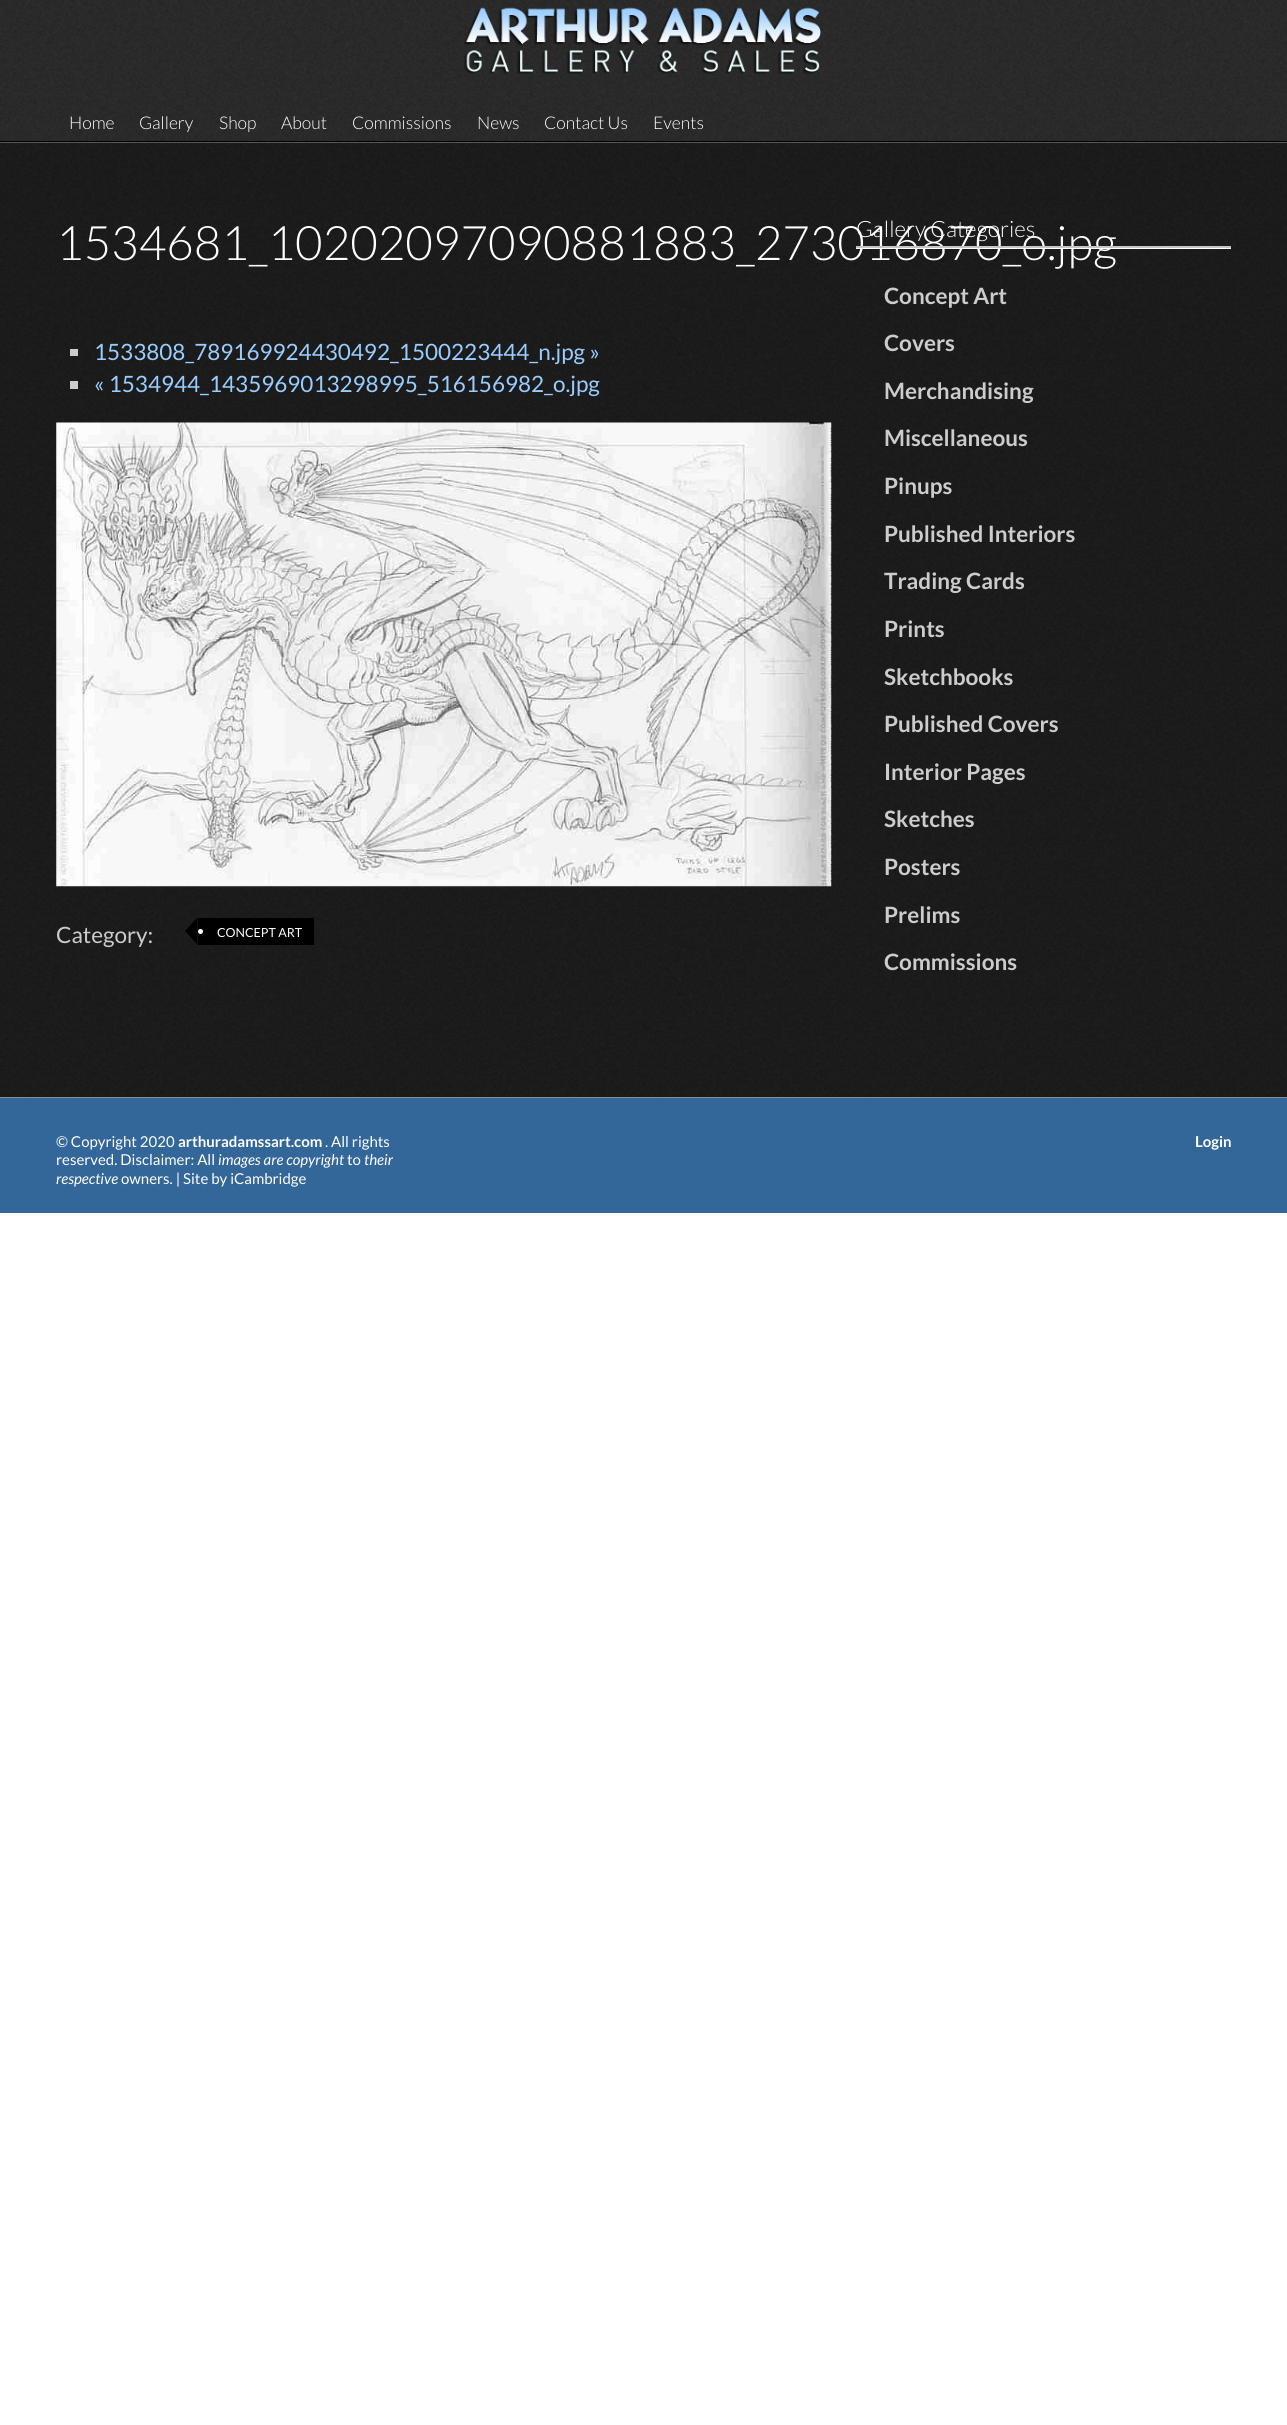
#include <cairo/cairo.h>
#include <math.h>
#include <stddef.h>

typedef struct { double x, y; const char *s; } line_t;
static cairo_t *cr;

static void rgb(unsigned color)
{
	cairo_set_source_rgb(cr, (color >> 16) / 255.0, (color >> 8 & 255) / 255.0, (color & 255) / 255.0);
}

static void image(const char *path, double x, double y, double w, double h)
{
	cairo_surface_t *image = cairo_image_surface_create_from_png(path);
	cairo_save(cr);
	cairo_set_source_surface(cr, image, x, y);
	cairo_rectangle(cr, x, y, w, h);
	cairo_fill(cr);
	cairo_restore(cr);
	cairo_surface_destroy(image);
}

int main(void) {
	cairo_surface_t *surface = cairo_image_surface_create(CAIRO_FORMAT_RGB24, 1287, 2425);
	cr = cairo_create(surface);
	cairo_font_options_t *options = cairo_font_options_create();
	cairo_font_options_set_hint_metrics(options, CAIRO_HINT_METRICS_OFF);
	cairo_font_options_set_hint_style(options, CAIRO_HINT_STYLE_NONE);
	cairo_set_font_options(cr, options);
	cairo_set_miter_limit(cr, 4);
	rgb(0xffffff);
	cairo_paint(cr);
	image("img/1.png", 0, 0, 1287, 143);
	rgb(0x000000);
	cairo_rectangle(cr, 0, 141, 1287, 1);
	cairo_fill(cr);
	image("img/2.png", 464, 7, 357, 67);
	image("img/3.png", 0, 142, 1287, 956);
	rgb(0xffffff);
	cairo_new_path(cr);
	cairo_move_to(cr, 856, 220);
	cairo_line_to(cr, 856, 249);
	cairo_line_to(cr, 1231, 249);
	cairo_line_to(cr, 1231, 246);
	cairo_line_to(cr, 856, 246);
	cairo_close_path(cr);
	cairo_fill(cr);
	rgb(0xcccccc);
	cairo_rectangle(cr, 70, 349, 8, 7);
	cairo_fill(cr);
	cairo_rectangle(cr, 70, 381, 8, 8);
	cairo_fill(cr);
	image("img/4.png", 56, 422, 776, 465);
	rgb(0x000000);
	cairo_rectangle(cr, 198, 918, 116, 27);
	cairo_fill(cr);
	cairo_new_path(cr);
	cairo_move_to(cr, 197.5, 917.5);
	cairo_line_to(cr, 197.5, 945);
	cairo_line_to(cr, 185, 931);
	cairo_close_path(cr);
	cairo_fill(cr);
	rgb(0xffffff);
	cairo_arc(cr, 200.5, 931.5, 2.5, 0, 2 * M_PI);
	cairo_fill(cr);
	rgb(0x336699);
	cairo_rectangle(cr, 0, 1098, 1287, 115);
	cairo_fill(cr);
	cairo_select_font_face(cr, "Lato Light", CAIRO_FONT_SLANT_NORMAL, CAIRO_FONT_WEIGHT_NORMAL);
	cairo_set_font_size(cr, 17.5);
	rgb(0xffffff);
	{
		static const line_t items[] = {
			{69, 129, "Home"},
			{139, 129, "Gallery"},
			{219, 129, "Shop"},
			{281, 129, "About"},
			{352, 129, "Commissions"},
			{477, 129, "News"},
			{544, 129, "Contact Us"},
			{653, 129, "Events"},
		};
		for (size_t i = 0; i < sizeof items / sizeof *items; i++) {
			cairo_move_to(cr, items[i].x, items[i].y);
			cairo_show_text(cr, items[i].s);
		}
	}
	cairo_select_font_face(cr, "Lato", CAIRO_FONT_SLANT_NORMAL, CAIRO_FONT_WEIGHT_BOLD);
	cairo_set_font_size(cr, 22.5);
	rgb(0xcccccc);
	{
		static const line_t items[] = {
			{884, 304, "Concept Art"},
			{884, 351, "Covers"},
			{884, 399, "Merchandising"},
			{884, 446, "Miscellaneous"},
			{884, 494, "Pinups"},
			{884, 542, "Published Interiors"},
			{884, 589, "Trading Cards"},
			{884, 637, "Prints"},
			{884, 685, "Sketchbooks"},
			{884, 732, "Published Covers"},
			{884, 780, "Interior Pages"},
			{884, 827, "Sketches"},
			{884, 875, "Posters"},
			{884, 923, "Prelims"},
			{884, 970, "Commissions"},
		};
		for (size_t i = 0; i < sizeof items / sizeof *items; i++) {
			cairo_move_to(cr, items[i].x, items[i].y);
			cairo_show_text(cr, items[i].s);
		}
	}
	cairo_select_font_face(cr, "Lato Light", CAIRO_FONT_SLANT_NORMAL, CAIRO_FONT_WEIGHT_NORMAL);
	cairo_set_font_size(cr, 47.5);
	rgb(0xffffff);
	cairo_move_to(cr, 56, 260);
	cairo_show_text(cr, "1534681_10202097090881883_273016870_o.jpg");
	cairo_set_font_size(cr, 22.5);
	cairo_move_to(cr, 856, 237);
	cairo_show_text(cr, "Gallery Categories");
	rgb(0xc5c5c5);
	cairo_new_path(cr);
	cairo_move_to(cr, 856, 219);
	cairo_line_to(cr, 856, 248);
	cairo_line_to(cr, 1231, 248);
	cairo_line_to(cr, 1231, 246);
	cairo_line_to(cr, 856, 246);
	cairo_close_path(cr);
	cairo_fill(cr);
	cairo_select_font_face(cr, "Lato", CAIRO_FONT_SLANT_NORMAL, CAIRO_FONT_WEIGHT_NORMAL);
	rgb(0x99ccff);
	cairo_move_to(cr, 94, 360);
	cairo_show_text(cr, "1533808_789169924430492_1500223444_n.jpg »");
	cairo_move_to(cr, 94, 392);
	cairo_show_text(cr, "« 1534944_1435969013298995_516156982_o.jpg");
	rgb(0xcccccc);
	cairo_move_to(cr, 56, 943);
	cairo_show_text(cr, "Category:");
	cairo_set_font_size(cr, 12.5);
	rgb(0xffffff);
	cairo_move_to(cr, 217, 937);
	cairo_show_text(cr, "CONCEPT ART");
	cairo_set_font_size(cr, 15);
	cairo_move_to(cr, 56, 1147);
	cairo_show_text(cr, "© Copyright 2020");
	cairo_select_font_face(cr, "Lato", CAIRO_FONT_SLANT_NORMAL, CAIRO_FONT_WEIGHT_BOLD);
	cairo_move_to(cr, 178, 1147);
	cairo_show_text(cr, "arthuradamssart.com");
	cairo_select_font_face(cr, "Lato", CAIRO_FONT_SLANT_NORMAL, CAIRO_FONT_WEIGHT_NORMAL);
	cairo_move_to(cr, 325, 1147);
	cairo_show_text(cr, ". All rights");
	cairo_move_to(cr, 56, 1165);
	cairo_show_text(cr, "reserved. Disclaimer: All");
	cairo_select_font_face(cr, "Lato", CAIRO_FONT_SLANT_ITALIC, CAIRO_FONT_WEIGHT_NORMAL);
	cairo_move_to(cr, 218, 1165);
	cairo_show_text(cr, "images are copyright");
	cairo_select_font_face(cr, "Lato", CAIRO_FONT_SLANT_NORMAL, CAIRO_FONT_WEIGHT_NORMAL);
	cairo_move_to(cr, 347, 1165);
	cairo_show_text(cr, "to");
	cairo_select_font_face(cr, "Lato", CAIRO_FONT_SLANT_ITALIC, CAIRO_FONT_WEIGHT_NORMAL);
	cairo_move_to(cr, 364, 1165);
	cairo_show_text(cr, "their");
	cairo_move_to(cr, 56, 1184);
	cairo_show_text(cr, "respective");
	cairo_select_font_face(cr, "Lato", CAIRO_FONT_SLANT_NORMAL, CAIRO_FONT_WEIGHT_NORMAL);
	cairo_move_to(cr, 121, 1184);
	cairo_show_text(cr, "owners. | Site by iCambridge");
	cairo_select_font_face(cr, "Lato", CAIRO_FONT_SLANT_NORMAL, CAIRO_FONT_WEIGHT_BOLD);
	cairo_move_to(cr, 1195, 1147);
	cairo_show_text(cr, "Login");
	cairo_surface_write_to_png(surface, "page.png");
	cairo_font_options_destroy(options);
	cairo_destroy(cr);
	cairo_surface_destroy(surface);
	return 0;
}
